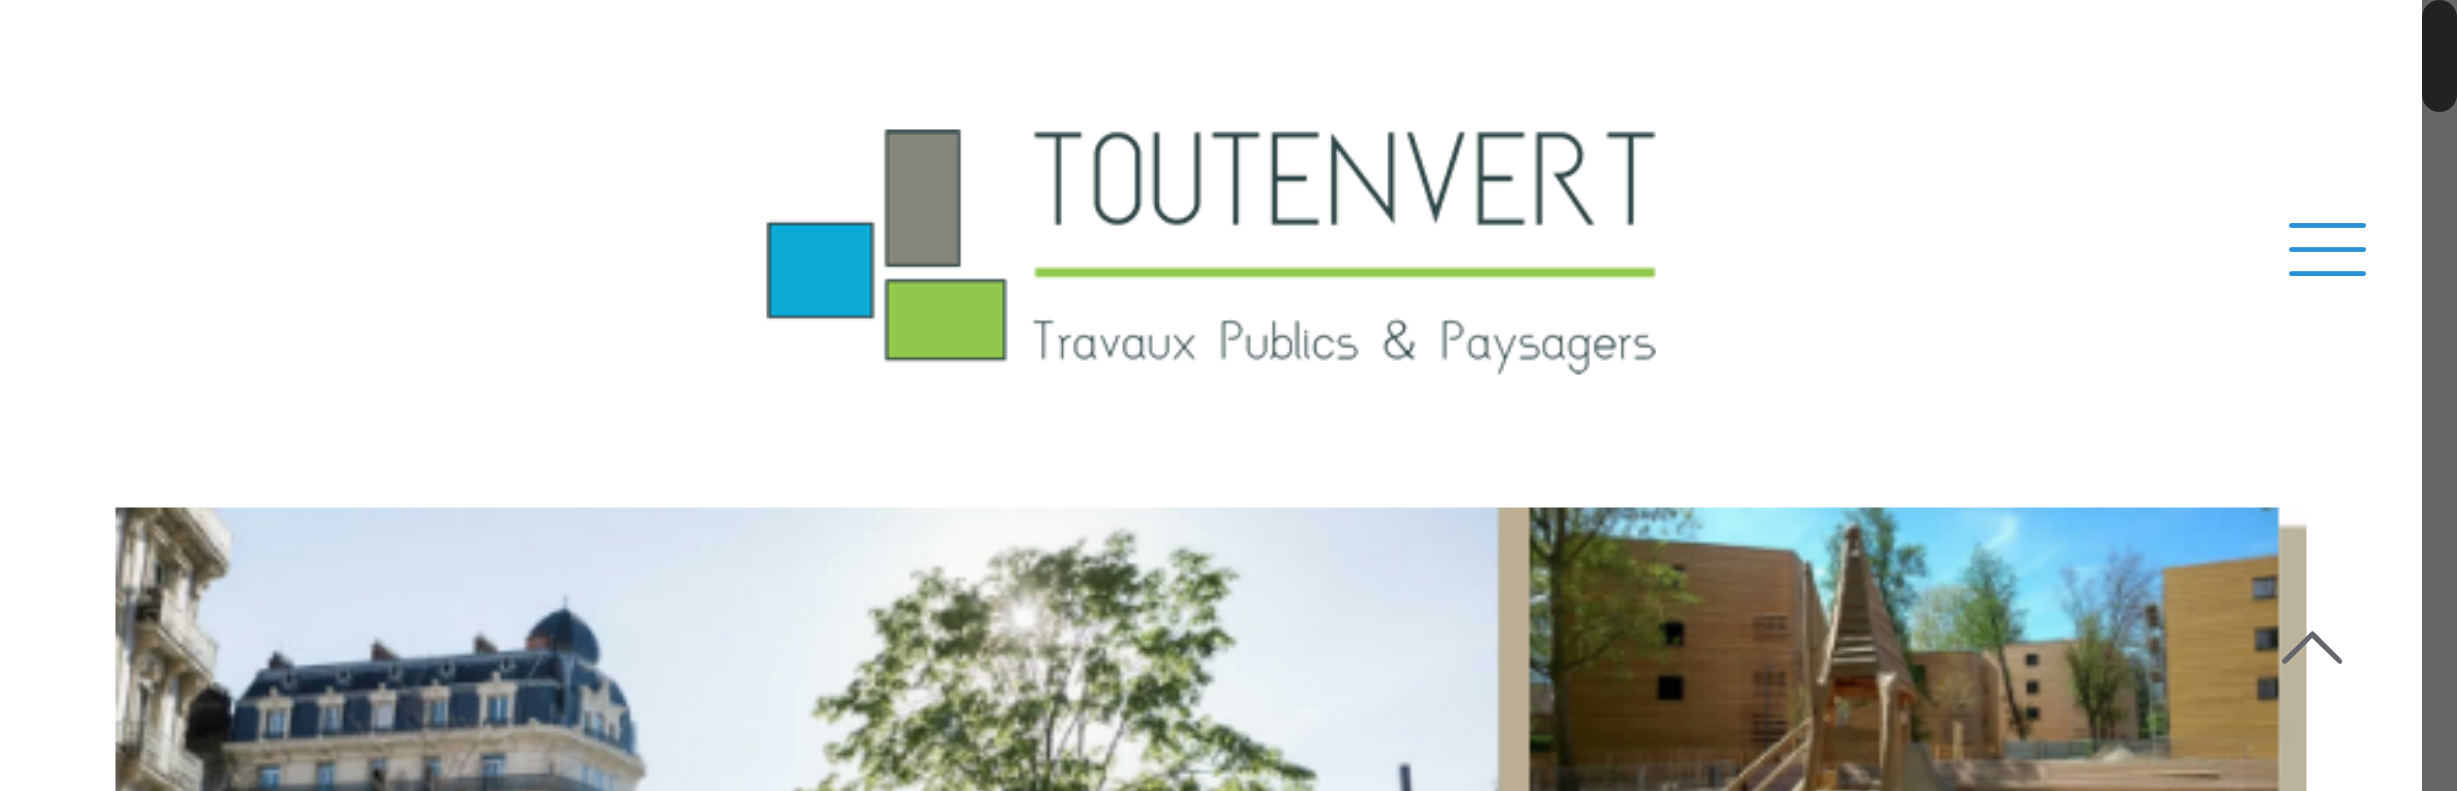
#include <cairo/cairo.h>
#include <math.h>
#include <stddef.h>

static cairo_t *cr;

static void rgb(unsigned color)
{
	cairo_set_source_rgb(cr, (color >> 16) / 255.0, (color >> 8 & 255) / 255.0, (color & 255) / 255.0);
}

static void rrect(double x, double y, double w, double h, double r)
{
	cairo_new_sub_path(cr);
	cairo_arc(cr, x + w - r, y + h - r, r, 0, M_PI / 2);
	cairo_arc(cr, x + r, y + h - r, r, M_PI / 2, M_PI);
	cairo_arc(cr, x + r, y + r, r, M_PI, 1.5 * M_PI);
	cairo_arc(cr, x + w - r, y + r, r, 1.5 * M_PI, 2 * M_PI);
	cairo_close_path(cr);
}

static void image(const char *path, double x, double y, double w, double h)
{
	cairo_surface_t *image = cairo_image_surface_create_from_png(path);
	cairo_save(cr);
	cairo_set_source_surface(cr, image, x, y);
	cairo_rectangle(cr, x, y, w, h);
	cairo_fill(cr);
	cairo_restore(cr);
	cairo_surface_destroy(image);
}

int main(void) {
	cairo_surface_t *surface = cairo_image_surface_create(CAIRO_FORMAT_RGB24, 2457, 791);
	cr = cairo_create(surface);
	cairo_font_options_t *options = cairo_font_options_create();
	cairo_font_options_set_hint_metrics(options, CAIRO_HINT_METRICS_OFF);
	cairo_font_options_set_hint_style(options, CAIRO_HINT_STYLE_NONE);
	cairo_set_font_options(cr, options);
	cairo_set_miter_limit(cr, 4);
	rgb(0xffffff);
	cairo_paint(cr);
	image("img/1.png", 766, 129, 890, 246);
	image("img/2.png", 2289, 223, 77, 54);
	image("img/3.png", 115, 507, 2192, 284);
	rgb(0x666666);
	cairo_rectangle(cr, 2422, 0, 35, 791);
	cairo_fill(cr);
	rgb(0x222222);
	rrect(2422, 0, 35, 112, 17.5);
	cairo_fill(cr);
	rgb(0x65666c);
	cairo_new_path(cr);
	cairo_move_to(cr, 2338, 663);
	cairo_line_to(cr, 2312, 638);
	cairo_line_to(cr, 2291, 659);
	cairo_curve_to(cr, 2289, 660, 2285, 667, 2282, 662);
	cairo_line_to(cr, 2282, 660);
	cairo_line_to(cr, 2312, 631);
	cairo_curve_to(cr, 2314, 631, 2322, 640, 2323, 641);
	cairo_line_to(cr, 2337, 655);
	cairo_curve_to(cr, 2337, 655, 2346, 662, 2340, 664);
	cairo_close_path(cr);
	cairo_fill(cr);
	cairo_surface_write_to_png(surface, "page.png");
	cairo_font_options_destroy(options);
	cairo_destroy(cr);
	cairo_surface_destroy(surface);
	return 0;
}
